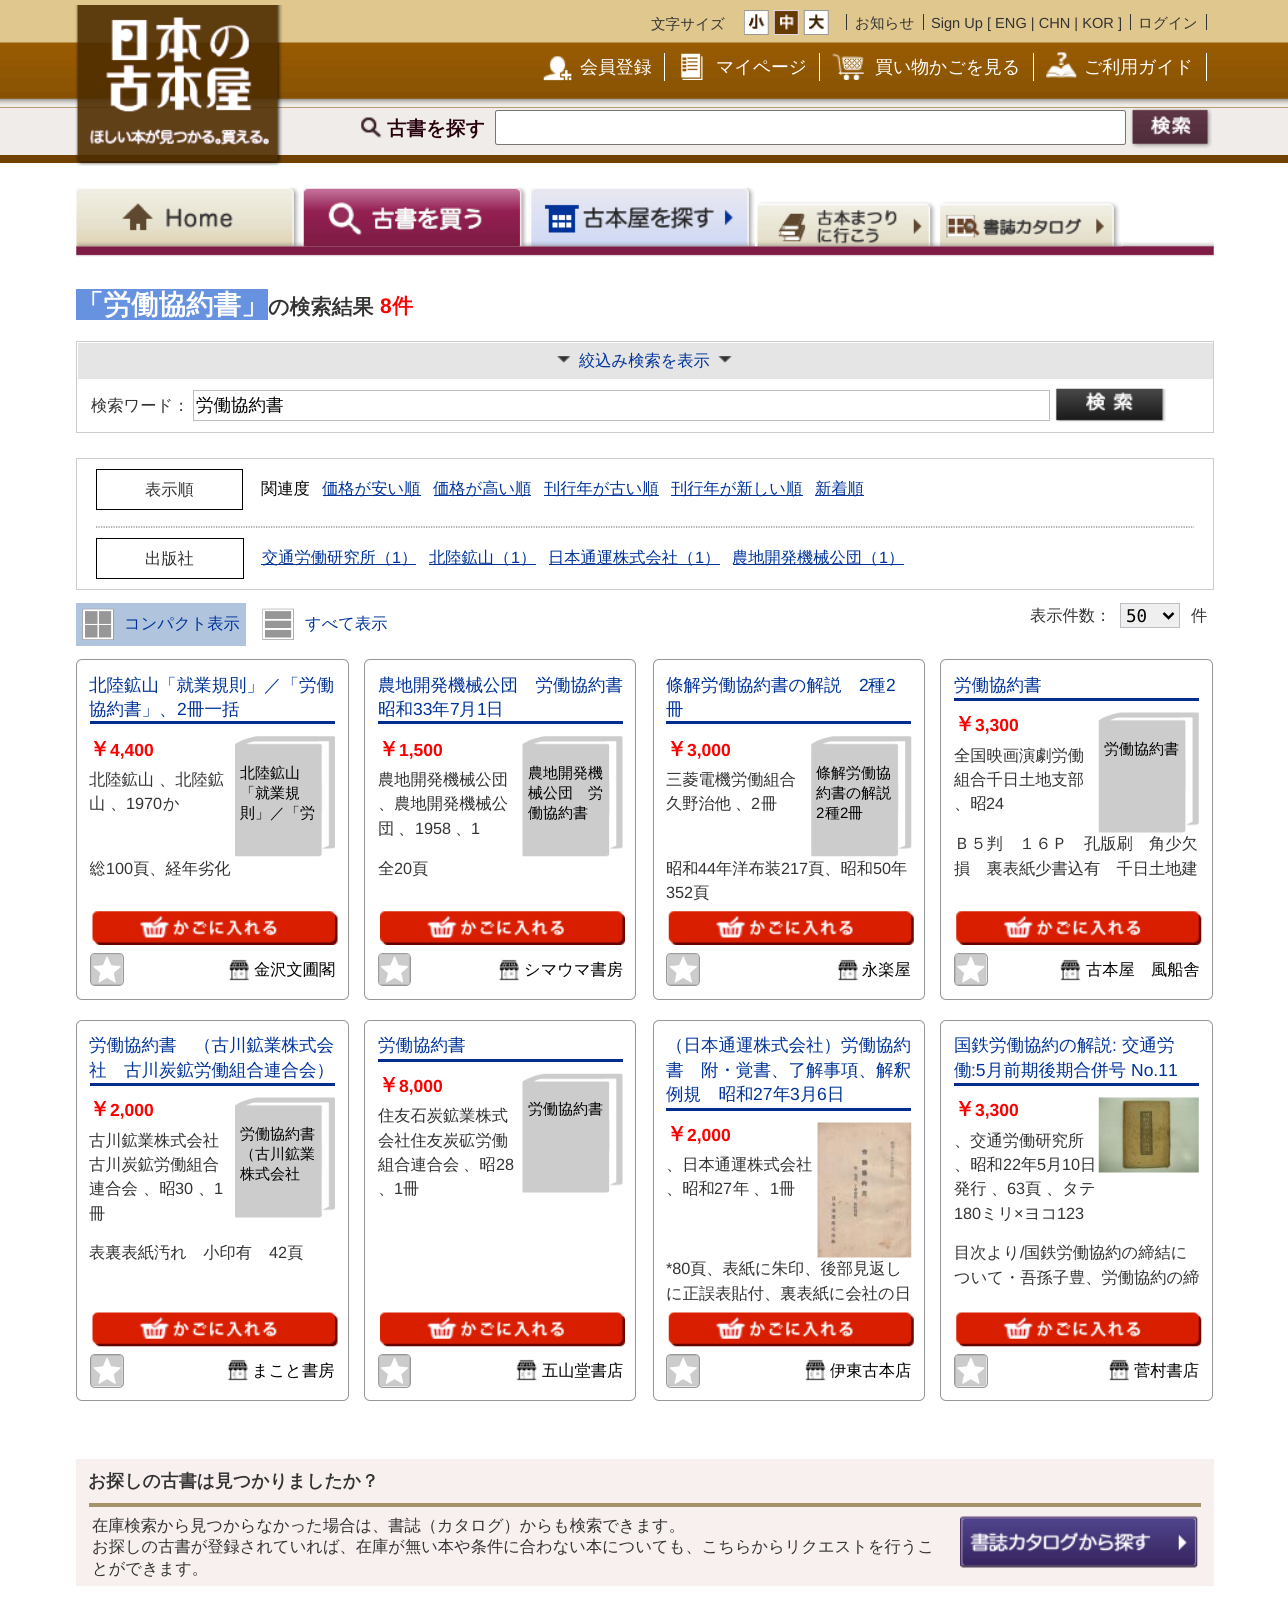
#include <cairo/cairo.h>
#include <math.h>
#include <stddef.h>

typedef struct { double x, y; const char *s; } line_t;
typedef struct { double x, y, w, h; unsigned color; } box_t;
static cairo_t *cr;

static void rgb(unsigned color)
{
	cairo_set_source_rgb(cr, (color >> 16) / 255.0, (color >> 8 & 255) / 255.0, (color & 255) / 255.0);
}

static void rrect(double x, double y, double w, double h, double r)
{
	cairo_new_sub_path(cr);
	cairo_arc(cr, x + w - r, y + h - r, r, 0, M_PI / 2);
	cairo_arc(cr, x + r, y + h - r, r, M_PI / 2, M_PI);
	cairo_arc(cr, x + r, y + r, r, M_PI, 1.5 * M_PI);
	cairo_arc(cr, x + w - r, y + r, r, 1.5 * M_PI, 2 * M_PI);
	cairo_close_path(cr);
}

static void image(const char *path, double x, double y, double w, double h)
{
	cairo_surface_t *image = cairo_image_surface_create_from_png(path);
	cairo_save(cr);
	cairo_set_source_surface(cr, image, x, y);
	cairo_rectangle(cr, x, y, w, h);
	cairo_fill(cr);
	cairo_restore(cr);
	cairo_surface_destroy(image);
}

int main(void) {
	cairo_surface_t *surface = cairo_image_surface_create(CAIRO_FORMAT_RGB24, 1288, 1597);
	cr = cairo_create(surface);
	cairo_font_options_t *options = cairo_font_options_create();
	cairo_font_options_set_hint_metrics(options, CAIRO_HINT_METRICS_OFF);
	cairo_font_options_set_hint_style(options, CAIRO_HINT_STYLE_NONE);
	cairo_set_font_options(cr, options);
	cairo_set_miter_limit(cr, 4);
	rgb(0xffffff);
	cairo_paint(cr);
	rgb(0xe0c78e);
	cairo_rectangle(cr, 0, 0, 1288, 43);
	cairo_fill(cr);
	rgb(0x7d4901);
	cairo_rectangle(cr, 0, 107, 1288, 1);
	cairo_fill(cr);
	image("img/5.png", 0, 42, 1288, 66);
	rgb(0xf0ece9);
	cairo_rectangle(cr, 0, 108, 1288, 47);
	cairo_fill(cr);
	rgb(0x714101);
	cairo_rectangle(cr, 0, 155, 1288, 8);
	cairo_fill(cr);
	image("img/1.png", 75, 5, 208, 161);
	image("img/2.png", 743, 10, 26, 25);
	image("img/3.png", 773, 10, 26, 25);
	image("img/4.png", 803, 10, 26, 25);
	{
		static const box_t items[] = {
			{846, 14, 1, 16, 0x333333},
			{923, 14, 1, 16, 0x333333},
			{1206, 14, 1, 16, 0x333333},
			{1130, 14, 1, 16, 0x333333},
		};
		for (size_t i = 0; i < sizeof items / sizeof *items; i++) {
			rgb(items[i].color);
			cairo_rectangle(cr, items[i].x, items[i].y, items[i].w, items[i].h);
			cairo_fill(cr);
		}
	}
	image("img/6.png", 543, 56, 29, 25);
	rgb(0xffffff);
	cairo_rectangle(cr, 664, 53, 1, 28);
	cairo_fill(cr);
	image("img/7.png", 681, 53, 22, 27);
	cairo_rectangle(cr, 819, 53, 1, 28);
	cairo_fill(cr);
	image("img/8.png", 832, 53, 32, 27);
	cairo_rectangle(cr, 1033, 53, 1, 28);
	cairo_fill(cr);
	image("img/9.png", 1046, 52, 31, 26);
	cairo_rectangle(cr, 1206, 53, 1, 28);
	cairo_fill(cr);
	image("img/10.png", 361, 117, 21, 21);
	rrect(495.5, 110.5, 630, 34, 2);
	cairo_fill_preserve(cr);
	rgb(0x767676);
	cairo_set_line_width(cr, 1);
	cairo_stroke(cr);
	image("img/11.png", 1130, 108, 82, 41);
	image("img/12.png", 76, 242, 1138, 15);
	rgb(0xffffff);
	cairo_rectangle(cr, 76, 242, 227, 4);
	cairo_fill(cr);
	image("img/13.png", 76, 187, 227, 60);
	image("img/14.png", 302, 187, 227, 60);
	image("img/15.png", 528, 187, 227, 60);
	cairo_rectangle(cr, 755, 242, 368, 4);
	cairo_fill(cr);
	image("img/16.png", 755, 201, 184, 46);
	image("img/17.png", 938, 201, 185, 46);
	rgb(0x6792e0);
	cairo_rectangle(cr, 76, 289, 192, 31);
	cairo_fill(cr);
	cairo_rectangle(cr, 76.5, 341.5, 1137, 91);
	rgb(0xcccccc);
	cairo_stroke(cr);
	rgb(0xe5e5e5);
	cairo_rectangle(cr, 78, 343, 1135, 36);
	cairo_fill(cr);
	image("img/18.png", 557, 356, 14, 7);
	image("img/19.png", 718, 356, 14, 7);
	cairo_rectangle(cr, 193.5, 390.5, 856, 30);
	rgb(0xbbbdc2);
	cairo_stroke(cr);
	image("img/20.png", 1055, 388, 111, 34);
	cairo_rectangle(cr, 76.5, 458.5, 1137, 131);
	rgb(0xcccccc);
	cairo_stroke(cr);
	cairo_new_path(cr);
	cairo_move_to(cr, 96, 527);
	cairo_line_to(cr, 1194, 527);
	rgb(0x7c7e7e);
	cairo_set_line_width(cr, 1.2);
	cairo_set_dash(cr, (double[]){1.25, 1.25}, 2, 0);
	cairo_stroke(cr);
	cairo_rectangle(cr, 96.5, 469.5, 146, 40);
	rgb(0x000000);
	cairo_set_line_width(cr, 1);
	cairo_set_dash(cr, NULL, 0, 0);
	cairo_stroke(cr);
	{
		static const box_t items[] = {
			{323, 495, 98, 1, 0x003399},
			{434, 495, 97, 1, 0x003399},
			{544, 495, 115, 1, 0x003399},
			{671, 495, 132, 1, 0x003399},
			{815, 495, 49, 1, 0x003399},
		};
		for (size_t i = 0; i < sizeof items / sizeof *items; i++) {
			rgb(items[i].color);
			cairo_rectangle(cr, items[i].x, items[i].y, items[i].w, items[i].h);
			cairo_fill(cr);
		}
	}
	cairo_rectangle(cr, 96.5, 538.5, 147, 40);
	rgb(0x000000);
	cairo_stroke(cr);
	{
		static const box_t items[] = {
			{261, 564, 155, 1, 0x003399},
			{429, 564, 107, 1, 0x003399},
			{549, 564, 171, 1, 0x003399},
			{733, 564, 171, 1, 0x003399},
			{76, 603, 170, 43, 0xb0c4de},
		};
		for (size_t i = 0; i < sizeof items / sizeof *items; i++) {
			rgb(items[i].color);
			cairo_rectangle(cr, items[i].x, items[i].y, items[i].w, items[i].h);
			cairo_fill(cr);
		}
	}
	image("img/21.png", 82, 608, 32, 32);
	image("img/22.png", 262, 608, 32, 32);
	rgb(0xefefef);
	cairo_rectangle(cr, 1120.5, 603.5, 59, 24);
	cairo_fill_preserve(cr);
	rgb(0xbbbdc2);
	cairo_stroke(cr);
	cairo_new_path(cr);
	cairo_move_to(cr, 1163.5, 613);
	cairo_line_to(cr, 1168.5, 618);
	cairo_line_to(cr, 1173.5, 613);
	rgb(0x000000);
	cairo_set_line_width(cr, 2.5);
	cairo_stroke(cr);
	rrect(76.5, 659.5, 272, 340, 5.5);
	rgb(0x979797);
	cairo_set_line_width(cr, 1);
	cairo_stroke(cr);
	rgb(0x002d8e);
	cairo_rectangle(cr, 90, 721, 245, 3);
	cairo_fill(cr);
	image("img/23.png", 235, 736, 100, 121);
	image("img/24.png", 92, 911, 246, 34);
	rrect(90.5, 953.5, 33, 32, 4.5);
	rgb(0x979797);
	cairo_stroke(cr);
	image("img/25.png", 91, 953, 32, 32);
	image("img/26.png", 228, 959, 21, 22);
	rrect(364.5, 659.5, 271, 340, 5.5);
	cairo_stroke(cr);
	rgb(0x002d8e);
	cairo_rectangle(cr, 378, 721, 245, 3);
	cairo_fill(cr);
	image("img/27.png", 522, 736, 101, 121);
	image("img/28.png", 380, 911, 245, 34);
	rrect(378.5, 953.5, 32, 32, 4.5);
	rgb(0x979797);
	cairo_stroke(cr);
	image("img/29.png", 378, 953, 32, 32);
	image("img/26.png", 498, 959, 21, 22);
	rrect(653.5, 659.5, 271, 340, 5.5);
	cairo_stroke(cr);
	rgb(0x002d8e);
	cairo_rectangle(cr, 666, 721, 245, 3);
	cairo_fill(cr);
	image("img/30.png", 811, 736, 101, 121);
	image("img/31.png", 668, 911, 246, 34);
	rrect(666.5, 953.5, 33, 32, 4.5);
	rgb(0x979797);
	cairo_stroke(cr);
	image("img/32.png", 667, 953, 32, 32);
	image("img/33.png", 837, 959, 21, 22);
	rrect(940.5, 659.5, 272, 340, 5.5);
	cairo_stroke(cr);
	rgb(0x002d8e);
	cairo_rectangle(cr, 954, 698, 245, 3);
	cairo_fill(cr);
	image("img/34.png", 1098, 712, 101, 121);
	image("img/35.png", 956, 911, 246, 34);
	rrect(954.5, 953.5, 33, 32, 4.5);
	rgb(0x979797);
	cairo_stroke(cr);
	image("img/36.png", 955, 953, 32, 32);
	image("img/37.png", 1060, 959, 21, 22);
	rrect(76.5, 1020.5, 272, 380, 5.5);
	cairo_stroke(cr);
	rgb(0x002d8e);
	cairo_rectangle(cr, 90, 1083, 245, 3);
	cairo_fill(cr);
	image("img/38.png", 235, 1097, 100, 121);
	image("img/39.png", 92, 1312, 246, 35);
	rrect(90.5, 1354.5, 33, 33, 4.5);
	rgb(0x979797);
	cairo_stroke(cr);
	image("img/40.png", 91, 1355, 32, 32);
	image("img/41.png", 227, 1359, 21, 22);
	rrect(364.5, 1020.5, 271, 380, 5.5);
	cairo_stroke(cr);
	rgb(0x002d8e);
	cairo_rectangle(cr, 378, 1059, 245, 3);
	cairo_fill(cr);
	image("img/42.png", 522, 1073, 101, 120);
	image("img/43.png", 380, 1312, 245, 35);
	rrect(378.5, 1354.5, 32, 33, 4.5);
	rgb(0x979797);
	cairo_stroke(cr);
	image("img/44.png", 378, 1355, 32, 32);
	image("img/45.png", 516, 1359, 21, 22);
	rrect(653.5, 1020.5, 271, 380, 5.5);
	cairo_stroke(cr);
	rgb(0x002d8e);
	cairo_rectangle(cr, 666, 1108, 245, 3);
	cairo_fill(cr);
	image("img/46.png", 817, 1122, 95, 136);
	image("img/47.png", 668, 1312, 246, 35);
	rrect(666.5, 1354.5, 33, 33, 4.5);
	rgb(0x979797);
	cairo_stroke(cr);
	image("img/48.png", 667, 1355, 32, 32);
	image("img/49.png", 805, 1359, 21, 22);
	rrect(940.5, 1020.5, 272, 380, 5.5);
	cairo_stroke(cr);
	rgb(0x002d8e);
	cairo_rectangle(cr, 954, 1083, 245, 3);
	cairo_fill(cr);
	image("img/50.png", 1098, 1097, 101, 76);
	image("img/51.png", 956, 1312, 246, 35);
	rrect(954.5, 1354.5, 33, 33, 4.5);
	rgb(0x979797);
	cairo_stroke(cr);
	image("img/52.png", 955, 1355, 32, 32);
	image("img/53.png", 1108, 1359, 21, 22);
	rgb(0xf7f0ef);
	cairo_rectangle(cr, 76, 1459, 1138, 127);
	cairo_fill(cr);
	rgb(0xa69268);
	cairo_rectangle(cr, 89, 1503, 1112, 4);
	cairo_fill(cr);
	image("img/54.png", 960, 1516, 238, 52);
	cairo_select_font_face(cr, "WenQuanYi Zen Hei Medium", CAIRO_FONT_SLANT_NORMAL, CAIRO_FONT_WEIGHT_NORMAL);
	cairo_set_font_size(cr, 14.6);
	rgb(0x333333);
	cairo_move_to(cr, 651, 29);
	cairo_show_text(cr, "文字サイズ");
	cairo_move_to(cr, 855, 28);
	cairo_show_text(cr, "お知らせ");
	cairo_select_font_face(cr, "Liberation Sans", CAIRO_FONT_SLANT_NORMAL, CAIRO_FONT_WEIGHT_NORMAL);
	cairo_move_to(cr, 931, 28);
	cairo_show_text(cr, "Sign Up [ ENG | CHN | KOR ]");
	cairo_select_font_face(cr, "WenQuanYi Zen Hei Medium", CAIRO_FONT_SLANT_NORMAL, CAIRO_FONT_WEIGHT_NORMAL);
	cairo_move_to(cr, 1138, 28);
	cairo_show_text(cr, "ログイン");
	cairo_set_font_size(cr, 17.9);
	rgb(0xffffff);
	{
		static const line_t items[] = {
			{580, 73, "会員登録"},
			{716, 73, "マイページ"},
			{875, 73, "買い物かごを見る"},
			{1084, 73, "ご利用ガイド"},
		};
		for (size_t i = 0; i < sizeof items / sizeof *items; i++) {
			cairo_move_to(cr, items[i].x, items[i].y);
			cairo_show_text(cr, items[i].s);
		}
	}
	cairo_select_font_face(cr, "WenQuanYi Zen Hei", CAIRO_FONT_SLANT_NORMAL, CAIRO_FONT_WEIGHT_BOLD);
	cairo_set_font_size(cr, 19.5);
	rgb(0x26000c);
	cairo_move_to(cr, 387, 135);
	cairo_show_text(cr, "古書を探す");
	cairo_set_font_size(cr, 27.5);
	rgb(0xffffff);
	cairo_move_to(cr, 76, 314);
	cairo_show_text(cr, "「労働協約書」");
	cairo_set_font_size(cr, 21);
	rgb(0x333333);
	cairo_move_to(cr, 268, 314);
	cairo_show_text(cr, "の検索結果");
	cairo_select_font_face(cr, "Liberation Sans", CAIRO_FONT_SLANT_NORMAL, CAIRO_FONT_WEIGHT_BOLD);
	rgb(0xff0000);
	cairo_move_to(cr, 380, 313);
	cairo_show_text(cr, "8");
	cairo_select_font_face(cr, "WenQuanYi Zen Hei", CAIRO_FONT_SLANT_NORMAL, CAIRO_FONT_WEIGHT_BOLD);
	cairo_move_to(cr, 392, 313);
	cairo_show_text(cr, "件");
	cairo_select_font_face(cr, "WenQuanYi Zen Hei Medium", CAIRO_FONT_SLANT_NORMAL, CAIRO_FONT_WEIGHT_NORMAL);
	cairo_set_font_size(cr, 16.25);
	rgb(0x003399);
	cairo_move_to(cr, 579, 366);
	cairo_show_text(cr, "絞込み検索を表示");
	rgb(0x333333);
	cairo_move_to(cr, 91, 411);
	cairo_show_text(cr, "検索ワード：");
	cairo_set_font_size(cr, 17.5);
	rgb(0x000000);
	cairo_move_to(cr, 196, 411);
	cairo_show_text(cr, "労働協約書");
	cairo_set_font_size(cr, 16.25);
	rgb(0x333333);
	cairo_move_to(cr, 145, 495);
	cairo_show_text(cr, "表示順");
	rgb(0x000000);
	cairo_move_to(cr, 261, 494);
	cairo_show_text(cr, "関連度");
	rgb(0x003399);
	{
		static const line_t items[] = {
			{322, 494, "価格が安い順"},
			{433, 494, "価格が高い順"},
			{544, 494, "刊行年が古い順"},
			{671, 494, "刊行年が新しい順"},
			{815, 494, "新着順"},
		};
		for (size_t i = 0; i < sizeof items / sizeof *items; i++) {
			cairo_move_to(cr, items[i].x, items[i].y);
			cairo_show_text(cr, items[i].s);
		}
	}
	rgb(0x333333);
	cairo_move_to(cr, 145, 564);
	cairo_show_text(cr, "出版社");
	rgb(0x003399);
	cairo_move_to(cr, 262, 563);
	cairo_show_text(cr, "交通労働研究所（");
	cairo_select_font_face(cr, "Liberation Sans", CAIRO_FONT_SLANT_NORMAL, CAIRO_FONT_WEIGHT_NORMAL);
	cairo_move_to(cr, 392, 563);
	cairo_show_text(cr, "1");
	cairo_select_font_face(cr, "WenQuanYi Zen Hei Medium", CAIRO_FONT_SLANT_NORMAL, CAIRO_FONT_WEIGHT_NORMAL);
	cairo_move_to(cr, 401, 563);
	cairo_show_text(cr, "）");
	cairo_move_to(cr, 429, 563);
	cairo_show_text(cr, "北陸鉱山（");
	cairo_select_font_face(cr, "Liberation Sans", CAIRO_FONT_SLANT_NORMAL, CAIRO_FONT_WEIGHT_NORMAL);
	cairo_move_to(cr, 511, 563);
	cairo_show_text(cr, "1");
	cairo_select_font_face(cr, "WenQuanYi Zen Hei Medium", CAIRO_FONT_SLANT_NORMAL, CAIRO_FONT_WEIGHT_NORMAL);
	cairo_move_to(cr, 520, 563);
	cairo_show_text(cr, "）");
	cairo_move_to(cr, 548, 563);
	cairo_show_text(cr, "日本通運株式会社（");
	cairo_select_font_face(cr, "Liberation Sans", CAIRO_FONT_SLANT_NORMAL, CAIRO_FONT_WEIGHT_NORMAL);
	cairo_move_to(cr, 695, 563);
	cairo_show_text(cr, "1");
	cairo_select_font_face(cr, "WenQuanYi Zen Hei Medium", CAIRO_FONT_SLANT_NORMAL, CAIRO_FONT_WEIGHT_NORMAL);
	cairo_move_to(cr, 704, 563);
	cairo_show_text(cr, "）");
	cairo_move_to(cr, 732, 563);
	cairo_show_text(cr, "農地開発機械公団（");
	cairo_select_font_face(cr, "Liberation Sans", CAIRO_FONT_SLANT_NORMAL, CAIRO_FONT_WEIGHT_NORMAL);
	cairo_move_to(cr, 879, 563);
	cairo_show_text(cr, "1");
	cairo_select_font_face(cr, "WenQuanYi Zen Hei Medium", CAIRO_FONT_SLANT_NORMAL, CAIRO_FONT_WEIGHT_NORMAL);
	{
		static const line_t items[] = {
			{888, 563, "）"},
			{124, 629, "コンパクト表示"},
			{305, 629, "すべて表示"},
		};
		for (size_t i = 0; i < sizeof items / sizeof *items; i++) {
			cairo_move_to(cr, items[i].x, items[i].y);
			cairo_show_text(cr, items[i].s);
		}
	}
	rgb(0x333333);
	cairo_move_to(cr, 1030, 621);
	cairo_show_text(cr, "表示件数：");
	cairo_select_font_face(cr, "DejaVu Sans Mono", CAIRO_FONT_SLANT_NORMAL, CAIRO_FONT_WEIGHT_NORMAL);
	cairo_set_font_size(cr, 17.5);
	rgb(0x000000);
	cairo_move_to(cr, 1126, 622);
	cairo_show_text(cr, "50");
	cairo_select_font_face(cr, "WenQuanYi Zen Hei Medium", CAIRO_FONT_SLANT_NORMAL, CAIRO_FONT_WEIGHT_NORMAL);
	cairo_set_font_size(cr, 16.25);
	rgb(0x333333);
	cairo_move_to(cr, 1191, 621);
	cairo_show_text(cr, "件");
	cairo_set_font_size(cr, 17.5);
	rgb(0x003399);
	cairo_move_to(cr, 89, 691);
	cairo_show_text(cr, "北陸鉱山「就業規則」／「労働");
	cairo_move_to(cr, 89, 715);
	cairo_show_text(cr, "協約書」、");
	cairo_select_font_face(cr, "Liberation Sans", CAIRO_FONT_SLANT_NORMAL, CAIRO_FONT_WEIGHT_NORMAL);
	cairo_move_to(cr, 177, 715);
	cairo_show_text(cr, "2");
	cairo_select_font_face(cr, "WenQuanYi Zen Hei Medium", CAIRO_FONT_SLANT_NORMAL, CAIRO_FONT_WEIGHT_NORMAL);
	cairo_move_to(cr, 187, 715);
	cairo_show_text(cr, "冊一括");
	cairo_select_font_face(cr, "WenQuanYi Zen Hei", CAIRO_FONT_SLANT_NORMAL, CAIRO_FONT_WEIGHT_BOLD);
	cairo_set_font_size(cr, 21);
	rgb(0xff0000);
	cairo_move_to(cr, 89, 756);
	cairo_show_text(cr, "￥");
	cairo_select_font_face(cr, "Liberation Sans", CAIRO_FONT_SLANT_NORMAL, CAIRO_FONT_WEIGHT_BOLD);
	cairo_set_font_size(cr, 17.5);
	cairo_move_to(cr, 110, 756);
	cairo_show_text(cr, "4,400");
	cairo_select_font_face(cr, "WenQuanYi Zen Hei Medium", CAIRO_FONT_SLANT_NORMAL, CAIRO_FONT_WEIGHT_NORMAL);
	cairo_set_font_size(cr, 16.25);
	rgb(0x333333);
	{
		static const line_t items[] = {
			{89, 785, "北陸鉱山"},
			{159, 785, "、北陸鉱"},
			{89, 809, "山"},
			{110, 809, "、"},
		};
		for (size_t i = 0; i < sizeof items / sizeof *items; i++) {
			cairo_move_to(cr, items[i].x, items[i].y);
			cairo_show_text(cr, items[i].s);
		}
	}
	cairo_select_font_face(cr, "Liberation Sans", CAIRO_FONT_SLANT_NORMAL, CAIRO_FONT_WEIGHT_NORMAL);
	cairo_move_to(cr, 126, 809);
	cairo_show_text(cr, "1970");
	cairo_select_font_face(cr, "WenQuanYi Zen Hei Medium", CAIRO_FONT_SLANT_NORMAL, CAIRO_FONT_WEIGHT_NORMAL);
	cairo_move_to(cr, 163, 809);
	cairo_show_text(cr, "か");
	cairo_set_font_size(cr, 15);
	rgb(0x000000);
	{
		static const line_t items[] = {
			{240, 778, "北陸鉱山"},
			{240, 798, "「就業規"},
			{240, 818, "則」／「労"},
		};
		for (size_t i = 0; i < sizeof items / sizeof *items; i++) {
			cairo_move_to(cr, items[i].x, items[i].y);
			cairo_show_text(cr, items[i].s);
		}
	}
	cairo_save(cr);
	cairo_rectangle(cr, 90, 856, 245, 25);
	cairo_clip(cr);
	cairo_set_font_size(cr, 16.25);
	rgb(0x333333);
	cairo_move_to(cr, 89, 874);
	cairo_show_text(cr, "総");
	cairo_restore(cr);
	cairo_select_font_face(cr, "Liberation Sans", CAIRO_FONT_SLANT_NORMAL, CAIRO_FONT_WEIGHT_NORMAL);
	cairo_set_font_size(cr, 16.25);
	rgb(0x333333);
	cairo_move_to(cr, 106, 874);
	cairo_show_text(cr, "100");
	cairo_select_font_face(cr, "WenQuanYi Zen Hei Medium", CAIRO_FONT_SLANT_NORMAL, CAIRO_FONT_WEIGHT_NORMAL);
	cairo_move_to(cr, 133, 874);
	cairo_show_text(cr, "頁、経年劣化");
	rgb(0x000000);
	cairo_move_to(cr, 254, 975);
	cairo_show_text(cr, "金沢文圃閣");
	cairo_set_font_size(cr, 17.5);
	rgb(0x003399);
	cairo_move_to(cr, 378, 691);
	cairo_show_text(cr, "農地開発機械公団　労働協約書");
	cairo_move_to(cr, 378, 715);
	cairo_show_text(cr, "昭和");
	cairo_select_font_face(cr, "Liberation Sans", CAIRO_FONT_SLANT_NORMAL, CAIRO_FONT_WEIGHT_NORMAL);
	cairo_move_to(cr, 413, 715);
	cairo_show_text(cr, "33");
	cairo_select_font_face(cr, "WenQuanYi Zen Hei Medium", CAIRO_FONT_SLANT_NORMAL, CAIRO_FONT_WEIGHT_NORMAL);
	cairo_move_to(cr, 432, 715);
	cairo_show_text(cr, "年");
	cairo_select_font_face(cr, "Liberation Sans", CAIRO_FONT_SLANT_NORMAL, CAIRO_FONT_WEIGHT_NORMAL);
	cairo_move_to(cr, 450, 715);
	cairo_show_text(cr, "7");
	cairo_select_font_face(cr, "WenQuanYi Zen Hei Medium", CAIRO_FONT_SLANT_NORMAL, CAIRO_FONT_WEIGHT_NORMAL);
	cairo_move_to(cr, 459, 715);
	cairo_show_text(cr, "月");
	cairo_select_font_face(cr, "Liberation Sans", CAIRO_FONT_SLANT_NORMAL, CAIRO_FONT_WEIGHT_NORMAL);
	cairo_move_to(cr, 477, 715);
	cairo_show_text(cr, "1");
	cairo_select_font_face(cr, "WenQuanYi Zen Hei Medium", CAIRO_FONT_SLANT_NORMAL, CAIRO_FONT_WEIGHT_NORMAL);
	cairo_move_to(cr, 486, 715);
	cairo_show_text(cr, "日");
	cairo_select_font_face(cr, "WenQuanYi Zen Hei", CAIRO_FONT_SLANT_NORMAL, CAIRO_FONT_WEIGHT_BOLD);
	cairo_set_font_size(cr, 21);
	rgb(0xff0000);
	cairo_move_to(cr, 378, 756);
	cairo_show_text(cr, "￥");
	cairo_select_font_face(cr, "Liberation Sans", CAIRO_FONT_SLANT_NORMAL, CAIRO_FONT_WEIGHT_BOLD);
	cairo_set_font_size(cr, 17.5);
	cairo_move_to(cr, 399, 756);
	cairo_show_text(cr, "1,500");
	cairo_select_font_face(cr, "WenQuanYi Zen Hei Medium", CAIRO_FONT_SLANT_NORMAL, CAIRO_FONT_WEIGHT_NORMAL);
	cairo_set_font_size(cr, 16.25);
	rgb(0x333333);
	{
		static const line_t items[] = {
			{378, 785, "農地開発機械公団"},
			{378, 809, "、農地開発機械公"},
			{378, 834, "団"},
			{398, 834, "、"},
		};
		for (size_t i = 0; i < sizeof items / sizeof *items; i++) {
			cairo_move_to(cr, items[i].x, items[i].y);
			cairo_show_text(cr, items[i].s);
		}
	}
	cairo_select_font_face(cr, "Liberation Sans", CAIRO_FONT_SLANT_NORMAL, CAIRO_FONT_WEIGHT_NORMAL);
	cairo_move_to(cr, 415, 834);
	cairo_show_text(cr, "1958");
	cairo_select_font_face(cr, "WenQuanYi Zen Hei Medium", CAIRO_FONT_SLANT_NORMAL, CAIRO_FONT_WEIGHT_NORMAL);
	cairo_move_to(cr, 455, 834);
	cairo_show_text(cr, "、");
	cairo_select_font_face(cr, "Liberation Sans", CAIRO_FONT_SLANT_NORMAL, CAIRO_FONT_WEIGHT_NORMAL);
	cairo_move_to(cr, 471, 834);
	cairo_show_text(cr, "1");
	cairo_select_font_face(cr, "WenQuanYi Zen Hei Medium", CAIRO_FONT_SLANT_NORMAL, CAIRO_FONT_WEIGHT_NORMAL);
	cairo_set_font_size(cr, 15);
	rgb(0x000000);
	{
		static const line_t items[] = {
			{528, 778, "農地開発機"},
			{528, 798, "械公団　労"},
			{528, 818, "働協約書"},
		};
		for (size_t i = 0; i < sizeof items / sizeof *items; i++) {
			cairo_move_to(cr, items[i].x, items[i].y);
			cairo_show_text(cr, items[i].s);
		}
	}
	cairo_set_font_size(cr, 16.25);
	rgb(0x333333);
	cairo_move_to(cr, 378, 874);
	cairo_show_text(cr, "全");
	cairo_select_font_face(cr, "Liberation Sans", CAIRO_FONT_SLANT_NORMAL, CAIRO_FONT_WEIGHT_NORMAL);
	cairo_move_to(cr, 394, 874);
	cairo_show_text(cr, "20");
	cairo_select_font_face(cr, "WenQuanYi Zen Hei Medium", CAIRO_FONT_SLANT_NORMAL, CAIRO_FONT_WEIGHT_NORMAL);
	cairo_move_to(cr, 412, 874);
	cairo_show_text(cr, "頁");
	rgb(0x000000);
	cairo_move_to(cr, 524, 975);
	cairo_show_text(cr, "シマウマ書房");
	cairo_set_font_size(cr, 17.5);
	rgb(0x003399);
	cairo_move_to(cr, 666, 691);
	cairo_show_text(cr, "條解労働協約書の解説");
	cairo_select_font_face(cr, "Liberation Sans", CAIRO_FONT_SLANT_NORMAL, CAIRO_FONT_WEIGHT_NORMAL);
	cairo_move_to(cr, 859, 691);
	cairo_show_text(cr, "2");
	cairo_select_font_face(cr, "WenQuanYi Zen Hei Medium", CAIRO_FONT_SLANT_NORMAL, CAIRO_FONT_WEIGHT_NORMAL);
	cairo_move_to(cr, 868, 691);
	cairo_show_text(cr, "種");
	cairo_select_font_face(cr, "Liberation Sans", CAIRO_FONT_SLANT_NORMAL, CAIRO_FONT_WEIGHT_NORMAL);
	cairo_move_to(cr, 886, 691);
	cairo_show_text(cr, "2");
	cairo_select_font_face(cr, "WenQuanYi Zen Hei Medium", CAIRO_FONT_SLANT_NORMAL, CAIRO_FONT_WEIGHT_NORMAL);
	cairo_move_to(cr, 666, 715);
	cairo_show_text(cr, "冊");
	cairo_select_font_face(cr, "WenQuanYi Zen Hei", CAIRO_FONT_SLANT_NORMAL, CAIRO_FONT_WEIGHT_BOLD);
	cairo_set_font_size(cr, 21);
	rgb(0xff0000);
	cairo_move_to(cr, 666, 756);
	cairo_show_text(cr, "￥");
	cairo_select_font_face(cr, "Liberation Sans", CAIRO_FONT_SLANT_NORMAL, CAIRO_FONT_WEIGHT_BOLD);
	cairo_set_font_size(cr, 17.5);
	cairo_move_to(cr, 687, 756);
	cairo_show_text(cr, "3,000");
	cairo_select_font_face(cr, "WenQuanYi Zen Hei Medium", CAIRO_FONT_SLANT_NORMAL, CAIRO_FONT_WEIGHT_NORMAL);
	cairo_set_font_size(cr, 16.25);
	rgb(0x333333);
	{
		static const line_t items[] = {
			{666, 785, "三菱電機労働組合"},
			{666, 809, "久野治他"},
			{735, 809, "、"},
		};
		for (size_t i = 0; i < sizeof items / sizeof *items; i++) {
			cairo_move_to(cr, items[i].x, items[i].y);
			cairo_show_text(cr, items[i].s);
		}
	}
	cairo_select_font_face(cr, "Liberation Sans", CAIRO_FONT_SLANT_NORMAL, CAIRO_FONT_WEIGHT_NORMAL);
	cairo_move_to(cr, 751, 809);
	cairo_show_text(cr, "2");
	cairo_select_font_face(cr, "WenQuanYi Zen Hei Medium", CAIRO_FONT_SLANT_NORMAL, CAIRO_FONT_WEIGHT_NORMAL);
	cairo_move_to(cr, 761, 809);
	cairo_show_text(cr, "冊");
	cairo_set_font_size(cr, 15);
	rgb(0x000000);
	cairo_move_to(cr, 816, 778);
	cairo_show_text(cr, "條解労働協");
	cairo_move_to(cr, 816, 798);
	cairo_show_text(cr, "約書の解説");
	cairo_select_font_face(cr, "Liberation Sans", CAIRO_FONT_SLANT_NORMAL, CAIRO_FONT_WEIGHT_NORMAL);
	cairo_move_to(cr, 816, 818);
	cairo_show_text(cr, "2");
	cairo_select_font_face(cr, "WenQuanYi Zen Hei Medium", CAIRO_FONT_SLANT_NORMAL, CAIRO_FONT_WEIGHT_NORMAL);
	cairo_move_to(cr, 825, 818);
	cairo_show_text(cr, "種");
	cairo_select_font_face(cr, "Liberation Sans", CAIRO_FONT_SLANT_NORMAL, CAIRO_FONT_WEIGHT_NORMAL);
	cairo_move_to(cr, 840, 818);
	cairo_show_text(cr, "2");
	cairo_select_font_face(cr, "WenQuanYi Zen Hei Medium", CAIRO_FONT_SLANT_NORMAL, CAIRO_FONT_WEIGHT_NORMAL);
	cairo_move_to(cr, 848, 818);
	cairo_show_text(cr, "冊");
	cairo_set_font_size(cr, 16.25);
	rgb(0x333333);
	cairo_move_to(cr, 666, 874);
	cairo_show_text(cr, "昭和");
	cairo_select_font_face(cr, "Liberation Sans", CAIRO_FONT_SLANT_NORMAL, CAIRO_FONT_WEIGHT_NORMAL);
	cairo_move_to(cr, 698, 874);
	cairo_show_text(cr, "44");
	cairo_select_font_face(cr, "WenQuanYi Zen Hei Medium", CAIRO_FONT_SLANT_NORMAL, CAIRO_FONT_WEIGHT_NORMAL);
	cairo_move_to(cr, 716, 874);
	cairo_show_text(cr, "年洋布装");
	cairo_select_font_face(cr, "Liberation Sans", CAIRO_FONT_SLANT_NORMAL, CAIRO_FONT_WEIGHT_NORMAL);
	cairo_move_to(cr, 781, 874);
	cairo_show_text(cr, "217");
	cairo_select_font_face(cr, "WenQuanYi Zen Hei Medium", CAIRO_FONT_SLANT_NORMAL, CAIRO_FONT_WEIGHT_NORMAL);
	cairo_move_to(cr, 808, 874);
	cairo_show_text(cr, "頁、昭和");
	cairo_select_font_face(cr, "Liberation Sans", CAIRO_FONT_SLANT_NORMAL, CAIRO_FONT_WEIGHT_NORMAL);
	cairo_move_to(cr, 873, 874);
	cairo_show_text(cr, "50");
	cairo_select_font_face(cr, "WenQuanYi Zen Hei Medium", CAIRO_FONT_SLANT_NORMAL, CAIRO_FONT_WEIGHT_NORMAL);
	cairo_move_to(cr, 891, 874);
	cairo_show_text(cr, "年");
	cairo_select_font_face(cr, "Liberation Sans", CAIRO_FONT_SLANT_NORMAL, CAIRO_FONT_WEIGHT_NORMAL);
	cairo_move_to(cr, 666, 898);
	cairo_show_text(cr, "352");
	cairo_select_font_face(cr, "WenQuanYi Zen Hei Medium", CAIRO_FONT_SLANT_NORMAL, CAIRO_FONT_WEIGHT_NORMAL);
	cairo_move_to(cr, 693, 898);
	cairo_show_text(cr, "頁");
	rgb(0x000000);
	cairo_move_to(cr, 862, 975);
	cairo_show_text(cr, "永楽屋");
	cairo_set_font_size(cr, 17.5);
	rgb(0x003399);
	cairo_move_to(cr, 954, 691);
	cairo_show_text(cr, "労働協約書");
	cairo_select_font_face(cr, "WenQuanYi Zen Hei", CAIRO_FONT_SLANT_NORMAL, CAIRO_FONT_WEIGHT_BOLD);
	cairo_set_font_size(cr, 21);
	rgb(0xff0000);
	cairo_move_to(cr, 954, 731);
	cairo_show_text(cr, "￥");
	cairo_select_font_face(cr, "Liberation Sans", CAIRO_FONT_SLANT_NORMAL, CAIRO_FONT_WEIGHT_BOLD);
	cairo_set_font_size(cr, 17.5);
	cairo_move_to(cr, 975, 731);
	cairo_show_text(cr, "3,300");
	cairo_select_font_face(cr, "WenQuanYi Zen Hei Medium", CAIRO_FONT_SLANT_NORMAL, CAIRO_FONT_WEIGHT_NORMAL);
	cairo_set_font_size(cr, 16.25);
	rgb(0x333333);
	{
		static const line_t items[] = {
			{954, 761, "全国映画演劇労働"},
			{954, 785, "組合千日土地支部"},
			{954, 809, "、昭"},
		};
		for (size_t i = 0; i < sizeof items / sizeof *items; i++) {
			cairo_move_to(cr, items[i].x, items[i].y);
			cairo_show_text(cr, items[i].s);
		}
	}
	cairo_select_font_face(cr, "Liberation Sans", CAIRO_FONT_SLANT_NORMAL, CAIRO_FONT_WEIGHT_NORMAL);
	cairo_move_to(cr, 986, 809);
	cairo_show_text(cr, "24");
	cairo_select_font_face(cr, "WenQuanYi Zen Hei Medium", CAIRO_FONT_SLANT_NORMAL, CAIRO_FONT_WEIGHT_NORMAL);
	cairo_set_font_size(cr, 15);
	rgb(0x000000);
	cairo_move_to(cr, 1104, 754);
	cairo_show_text(cr, "労働協約書");
	cairo_set_font_size(cr, 16.25);
	rgb(0x333333);
	cairo_move_to(cr, 954, 849);
	cairo_show_text(cr, "Ｂ５判　１６Ｐ　孔版刷　角少欠");
	cairo_move_to(cr, 954, 874);
	cairo_show_text(cr, "損　裏表紙少書込有　千日土地建");
	rgb(0x000000);
	cairo_move_to(cr, 1086, 975);
	cairo_show_text(cr, "古本屋　風船舎");
	cairo_set_font_size(cr, 17.5);
	rgb(0x003399);
	cairo_move_to(cr, 89, 1051);
	cairo_show_text(cr, "労働協約書　（古川鉱業株式会");
	cairo_move_to(cr, 89, 1076);
	cairo_show_text(cr, "社　古川炭鉱労働組合連合会）");
	cairo_select_font_face(cr, "WenQuanYi Zen Hei", CAIRO_FONT_SLANT_NORMAL, CAIRO_FONT_WEIGHT_BOLD);
	cairo_set_font_size(cr, 21);
	rgb(0xff0000);
	cairo_move_to(cr, 89, 1116);
	cairo_show_text(cr, "￥");
	cairo_select_font_face(cr, "Liberation Sans", CAIRO_FONT_SLANT_NORMAL, CAIRO_FONT_WEIGHT_BOLD);
	cairo_set_font_size(cr, 17.5);
	cairo_move_to(cr, 110, 1116);
	cairo_show_text(cr, "2,000");
	cairo_select_font_face(cr, "WenQuanYi Zen Hei Medium", CAIRO_FONT_SLANT_NORMAL, CAIRO_FONT_WEIGHT_NORMAL);
	cairo_set_font_size(cr, 16.25);
	rgb(0x333333);
	{
		static const line_t items[] = {
			{89, 1146, "古川鉱業株式会社"},
			{89, 1170, "古川炭鉱労働組合"},
			{89, 1194, "連合会"},
			{143, 1194, "、昭"},
		};
		for (size_t i = 0; i < sizeof items / sizeof *items; i++) {
			cairo_move_to(cr, items[i].x, items[i].y);
			cairo_show_text(cr, items[i].s);
		}
	}
	cairo_select_font_face(cr, "Liberation Sans", CAIRO_FONT_SLANT_NORMAL, CAIRO_FONT_WEIGHT_NORMAL);
	cairo_move_to(cr, 175, 1194);
	cairo_show_text(cr, "30");
	cairo_select_font_face(cr, "WenQuanYi Zen Hei Medium", CAIRO_FONT_SLANT_NORMAL, CAIRO_FONT_WEIGHT_NORMAL);
	cairo_move_to(cr, 198, 1194);
	cairo_show_text(cr, "、");
	cairo_select_font_face(cr, "Liberation Sans", CAIRO_FONT_SLANT_NORMAL, CAIRO_FONT_WEIGHT_NORMAL);
	cairo_move_to(cr, 214, 1194);
	cairo_show_text(cr, "1");
	cairo_select_font_face(cr, "WenQuanYi Zen Hei Medium", CAIRO_FONT_SLANT_NORMAL, CAIRO_FONT_WEIGHT_NORMAL);
	cairo_move_to(cr, 89, 1219);
	cairo_show_text(cr, "冊");
	cairo_set_font_size(cr, 15);
	rgb(0x000000);
	{
		static const line_t items[] = {
			{240, 1139, "労働協約書"},
			{240, 1159, "（古川鉱業"},
			{240, 1179, "株式会社"},
		};
		for (size_t i = 0; i < sizeof items / sizeof *items; i++) {
			cairo_move_to(cr, items[i].x, items[i].y);
			cairo_show_text(cr, items[i].s);
		}
	}
	cairo_set_font_size(cr, 16.25);
	rgb(0x333333);
	cairo_move_to(cr, 89, 1258);
	cairo_show_text(cr, "表裏表紙汚れ　小印有");
	cairo_select_font_face(cr, "Liberation Sans", CAIRO_FONT_SLANT_NORMAL, CAIRO_FONT_WEIGHT_NORMAL);
	cairo_move_to(cr, 269, 1258);
	cairo_show_text(cr, "42");
	cairo_select_font_face(cr, "WenQuanYi Zen Hei Medium", CAIRO_FONT_SLANT_NORMAL, CAIRO_FONT_WEIGHT_NORMAL);
	cairo_move_to(cr, 287, 1258);
	cairo_show_text(cr, "頁");
	rgb(0x000000);
	cairo_move_to(cr, 252, 1376);
	cairo_show_text(cr, "まこと書房");
	cairo_set_font_size(cr, 17.5);
	rgb(0x003399);
	cairo_move_to(cr, 378, 1051);
	cairo_show_text(cr, "労働協約書");
	cairo_select_font_face(cr, "WenQuanYi Zen Hei", CAIRO_FONT_SLANT_NORMAL, CAIRO_FONT_WEIGHT_BOLD);
	cairo_set_font_size(cr, 21);
	rgb(0xff0000);
	cairo_move_to(cr, 378, 1092);
	cairo_show_text(cr, "￥");
	cairo_select_font_face(cr, "Liberation Sans", CAIRO_FONT_SLANT_NORMAL, CAIRO_FONT_WEIGHT_BOLD);
	cairo_set_font_size(cr, 17.5);
	cairo_move_to(cr, 399, 1092);
	cairo_show_text(cr, "8,000");
	cairo_select_font_face(cr, "WenQuanYi Zen Hei Medium", CAIRO_FONT_SLANT_NORMAL, CAIRO_FONT_WEIGHT_NORMAL);
	cairo_set_font_size(cr, 16.25);
	rgb(0x333333);
	cairo_move_to(cr, 378, 1121);
	cairo_show_text(cr, "住友石炭鉱業株式");
	cairo_move_to(cr, 378, 1146);
	cairo_show_text(cr, "会社住友炭砿労働");
	cairo_save(cr);
	cairo_rectangle(cr, 378, 1104, 145, 97);
	cairo_clip(cr);
	cairo_move_to(cr, 378, 1170);
	cairo_show_text(cr, "組合連合会");
	cairo_restore(cr);
	cairo_move_to(cr, 463, 1170);
	cairo_show_text(cr, "、昭");
	cairo_select_font_face(cr, "Liberation Sans", CAIRO_FONT_SLANT_NORMAL, CAIRO_FONT_WEIGHT_NORMAL);
	cairo_move_to(cr, 496, 1170);
	cairo_show_text(cr, "28");
	cairo_select_font_face(cr, "WenQuanYi Zen Hei Medium", CAIRO_FONT_SLANT_NORMAL, CAIRO_FONT_WEIGHT_NORMAL);
	cairo_move_to(cr, 378, 1194);
	cairo_show_text(cr, "、");
	cairo_select_font_face(cr, "Liberation Sans", CAIRO_FONT_SLANT_NORMAL, CAIRO_FONT_WEIGHT_NORMAL);
	cairo_move_to(cr, 394, 1194);
	cairo_show_text(cr, "1");
	cairo_select_font_face(cr, "WenQuanYi Zen Hei Medium", CAIRO_FONT_SLANT_NORMAL, CAIRO_FONT_WEIGHT_NORMAL);
	cairo_move_to(cr, 403, 1194);
	cairo_show_text(cr, "冊");
	cairo_set_font_size(cr, 15);
	rgb(0x000000);
	cairo_move_to(cr, 528, 1114);
	cairo_show_text(cr, "労働協約書");
	cairo_set_font_size(cr, 16.25);
	cairo_move_to(cr, 542, 1376);
	cairo_show_text(cr, "五山堂書店");
	cairo_set_font_size(cr, 17.5);
	rgb(0x003399);
	{
		static const line_t items[] = {
			{666, 1051, "（日本通運株式会社）労働協約"},
			{666, 1076, "書　附・覚書、了解事項、解釈"},
			{666, 1100, "例規　昭和"},
		};
		for (size_t i = 0; i < sizeof items / sizeof *items; i++) {
			cairo_move_to(cr, items[i].x, items[i].y);
			cairo_show_text(cr, items[i].s);
		}
	}
	cairo_select_font_face(cr, "Liberation Sans", CAIRO_FONT_SLANT_NORMAL, CAIRO_FONT_WEIGHT_NORMAL);
	cairo_move_to(cr, 753, 1100);
	cairo_show_text(cr, "27");
	cairo_select_font_face(cr, "WenQuanYi Zen Hei Medium", CAIRO_FONT_SLANT_NORMAL, CAIRO_FONT_WEIGHT_NORMAL);
	cairo_move_to(cr, 773, 1100);
	cairo_show_text(cr, "年");
	cairo_select_font_face(cr, "Liberation Sans", CAIRO_FONT_SLANT_NORMAL, CAIRO_FONT_WEIGHT_NORMAL);
	cairo_move_to(cr, 790, 1100);
	cairo_show_text(cr, "3");
	cairo_select_font_face(cr, "WenQuanYi Zen Hei Medium", CAIRO_FONT_SLANT_NORMAL, CAIRO_FONT_WEIGHT_NORMAL);
	cairo_move_to(cr, 800, 1100);
	cairo_show_text(cr, "月");
	cairo_select_font_face(cr, "Liberation Sans", CAIRO_FONT_SLANT_NORMAL, CAIRO_FONT_WEIGHT_NORMAL);
	cairo_move_to(cr, 817, 1100);
	cairo_show_text(cr, "6");
	cairo_select_font_face(cr, "WenQuanYi Zen Hei Medium", CAIRO_FONT_SLANT_NORMAL, CAIRO_FONT_WEIGHT_NORMAL);
	cairo_move_to(cr, 827, 1100);
	cairo_show_text(cr, "日");
	cairo_select_font_face(cr, "WenQuanYi Zen Hei", CAIRO_FONT_SLANT_NORMAL, CAIRO_FONT_WEIGHT_BOLD);
	cairo_set_font_size(cr, 21);
	rgb(0xff0000);
	cairo_move_to(cr, 666, 1141);
	cairo_show_text(cr, "￥");
	cairo_select_font_face(cr, "Liberation Sans", CAIRO_FONT_SLANT_NORMAL, CAIRO_FONT_WEIGHT_BOLD);
	cairo_set_font_size(cr, 17.5);
	cairo_move_to(cr, 687, 1141);
	cairo_show_text(cr, "2,000");
	cairo_select_font_face(cr, "WenQuanYi Zen Hei Medium", CAIRO_FONT_SLANT_NORMAL, CAIRO_FONT_WEIGHT_NORMAL);
	cairo_set_font_size(cr, 16.25);
	rgb(0x333333);
	cairo_move_to(cr, 666, 1170);
	cairo_show_text(cr, "、日本通運株式会社");
	cairo_move_to(cr, 666, 1194);
	cairo_show_text(cr, "、昭和");
	cairo_select_font_face(cr, "Liberation Sans", CAIRO_FONT_SLANT_NORMAL, CAIRO_FONT_WEIGHT_NORMAL);
	cairo_move_to(cr, 714, 1194);
	cairo_show_text(cr, "27");
	cairo_select_font_face(cr, "WenQuanYi Zen Hei Medium", CAIRO_FONT_SLANT_NORMAL, CAIRO_FONT_WEIGHT_NORMAL);
	cairo_move_to(cr, 733, 1194);
	cairo_show_text(cr, "年");
	cairo_move_to(cr, 753, 1194);
	cairo_show_text(cr, "、");
	cairo_select_font_face(cr, "Liberation Sans", CAIRO_FONT_SLANT_NORMAL, CAIRO_FONT_WEIGHT_NORMAL);
	cairo_move_to(cr, 770, 1194);
	cairo_show_text(cr, "1");
	cairo_select_font_face(cr, "WenQuanYi Zen Hei Medium", CAIRO_FONT_SLANT_NORMAL, CAIRO_FONT_WEIGHT_NORMAL);
	cairo_move_to(cr, 779, 1194);
	cairo_show_text(cr, "冊");
	cairo_select_font_face(cr, "Liberation Sans", CAIRO_FONT_SLANT_NORMAL, CAIRO_FONT_WEIGHT_NORMAL);
	cairo_move_to(cr, 666, 1274);
	cairo_show_text(cr, "*80");
	cairo_select_font_face(cr, "WenQuanYi Zen Hei Medium", CAIRO_FONT_SLANT_NORMAL, CAIRO_FONT_WEIGHT_NORMAL);
	cairo_move_to(cr, 690, 1274);
	cairo_show_text(cr, "頁、表紙に朱印、後部見返し");
	cairo_move_to(cr, 666, 1299);
	cairo_show_text(cr, "に正誤表貼付、裏表紙に会社の日");
	rgb(0x000000);
	cairo_move_to(cr, 830, 1376);
	cairo_show_text(cr, "伊東古本店");
	cairo_set_font_size(cr, 17.5);
	rgb(0x003399);
	cairo_move_to(cr, 954, 1051);
	cairo_show_text(cr, "国鉄労働協約の解説");
	cairo_select_font_face(cr, "Liberation Sans", CAIRO_FONT_SLANT_NORMAL, CAIRO_FONT_WEIGHT_NORMAL);
	cairo_move_to(cr, 1112, 1051);
	cairo_show_text(cr, ":");
	cairo_select_font_face(cr, "WenQuanYi Zen Hei Medium", CAIRO_FONT_SLANT_NORMAL, CAIRO_FONT_WEIGHT_NORMAL);
	cairo_move_to(cr, 1122, 1051);
	cairo_show_text(cr, "交通労");
	cairo_move_to(cr, 954, 1076);
	cairo_show_text(cr, "働");
	cairo_select_font_face(cr, "Liberation Sans", CAIRO_FONT_SLANT_NORMAL, CAIRO_FONT_WEIGHT_NORMAL);
	cairo_move_to(cr, 971, 1076);
	cairo_show_text(cr, ":5");
	cairo_select_font_face(cr, "WenQuanYi Zen Hei Medium", CAIRO_FONT_SLANT_NORMAL, CAIRO_FONT_WEIGHT_NORMAL);
	cairo_move_to(cr, 986, 1076);
	cairo_show_text(cr, "月前期後期合併号");
	cairo_select_font_face(cr, "Liberation Sans", CAIRO_FONT_SLANT_NORMAL, CAIRO_FONT_WEIGHT_NORMAL);
	cairo_move_to(cr, 1131, 1076);
	cairo_show_text(cr, "No.11");
	cairo_select_font_face(cr, "WenQuanYi Zen Hei", CAIRO_FONT_SLANT_NORMAL, CAIRO_FONT_WEIGHT_BOLD);
	cairo_set_font_size(cr, 21);
	rgb(0xff0000);
	cairo_move_to(cr, 954, 1116);
	cairo_show_text(cr, "￥");
	cairo_select_font_face(cr, "Liberation Sans", CAIRO_FONT_SLANT_NORMAL, CAIRO_FONT_WEIGHT_BOLD);
	cairo_set_font_size(cr, 17.5);
	cairo_move_to(cr, 975, 1116);
	cairo_show_text(cr, "3,300");
	cairo_select_font_face(cr, "WenQuanYi Zen Hei Medium", CAIRO_FONT_SLANT_NORMAL, CAIRO_FONT_WEIGHT_NORMAL);
	cairo_set_font_size(cr, 16.25);
	rgb(0x333333);
	cairo_move_to(cr, 954, 1146);
	cairo_show_text(cr, "、交通労働研究所");
	cairo_move_to(cr, 954, 1170);
	cairo_show_text(cr, "、昭和");
	cairo_select_font_face(cr, "Liberation Sans", CAIRO_FONT_SLANT_NORMAL, CAIRO_FONT_WEIGHT_NORMAL);
	cairo_move_to(cr, 1003, 1170);
	cairo_show_text(cr, "22");
	cairo_select_font_face(cr, "WenQuanYi Zen Hei Medium", CAIRO_FONT_SLANT_NORMAL, CAIRO_FONT_WEIGHT_NORMAL);
	cairo_move_to(cr, 1021, 1170);
	cairo_show_text(cr, "年");
	cairo_select_font_face(cr, "Liberation Sans", CAIRO_FONT_SLANT_NORMAL, CAIRO_FONT_WEIGHT_NORMAL);
	cairo_move_to(cr, 1037, 1170);
	cairo_show_text(cr, "5");
	cairo_select_font_face(cr, "WenQuanYi Zen Hei Medium", CAIRO_FONT_SLANT_NORMAL, CAIRO_FONT_WEIGHT_NORMAL);
	cairo_move_to(cr, 1046, 1170);
	cairo_show_text(cr, "月");
	cairo_select_font_face(cr, "Liberation Sans", CAIRO_FONT_SLANT_NORMAL, CAIRO_FONT_WEIGHT_NORMAL);
	cairo_move_to(cr, 1062, 1170);
	cairo_show_text(cr, "10");
	cairo_select_font_face(cr, "WenQuanYi Zen Hei Medium", CAIRO_FONT_SLANT_NORMAL, CAIRO_FONT_WEIGHT_NORMAL);
	{
		static const line_t items[] = {
			{1080, 1170, "日"},
			{954, 1194, "発行"},
			{991, 1194, "、"},
		};
		for (size_t i = 0; i < sizeof items / sizeof *items; i++) {
			cairo_move_to(cr, items[i].x, items[i].y);
			cairo_show_text(cr, items[i].s);
		}
	}
	cairo_select_font_face(cr, "Liberation Sans", CAIRO_FONT_SLANT_NORMAL, CAIRO_FONT_WEIGHT_NORMAL);
	cairo_move_to(cr, 1007, 1194);
	cairo_show_text(cr, "63");
	cairo_select_font_face(cr, "WenQuanYi Zen Hei Medium", CAIRO_FONT_SLANT_NORMAL, CAIRO_FONT_WEIGHT_NORMAL);
	cairo_move_to(cr, 1025, 1194);
	cairo_show_text(cr, "頁");
	cairo_move_to(cr, 1046, 1194);
	cairo_show_text(cr, "、タテ");
	cairo_select_font_face(cr, "Liberation Sans", CAIRO_FONT_SLANT_NORMAL, CAIRO_FONT_WEIGHT_NORMAL);
	cairo_move_to(cr, 954, 1219);
	cairo_show_text(cr, "180");
	cairo_select_font_face(cr, "WenQuanYi Zen Hei Medium", CAIRO_FONT_SLANT_NORMAL, CAIRO_FONT_WEIGHT_NORMAL);
	cairo_move_to(cr, 981, 1219);
	cairo_show_text(cr, "ミリ");
	cairo_select_font_face(cr, "Liberation Sans", CAIRO_FONT_SLANT_NORMAL, CAIRO_FONT_WEIGHT_NORMAL);
	cairo_move_to(cr, 1014, 1219);
	cairo_show_text(cr, "×");
	cairo_select_font_face(cr, "WenQuanYi Zen Hei Medium", CAIRO_FONT_SLANT_NORMAL, CAIRO_FONT_WEIGHT_NORMAL);
	cairo_move_to(cr, 1024, 1219);
	cairo_show_text(cr, "ヨコ");
	cairo_select_font_face(cr, "Liberation Sans", CAIRO_FONT_SLANT_NORMAL, CAIRO_FONT_WEIGHT_NORMAL);
	cairo_move_to(cr, 1057, 1219);
	cairo_show_text(cr, "123");
	cairo_select_font_face(cr, "WenQuanYi Zen Hei Medium", CAIRO_FONT_SLANT_NORMAL, CAIRO_FONT_WEIGHT_NORMAL);
	cairo_move_to(cr, 954, 1258);
	cairo_show_text(cr, "目次より");
	cairo_select_font_face(cr, "Liberation Sans", CAIRO_FONT_SLANT_NORMAL, CAIRO_FONT_WEIGHT_NORMAL);
	cairo_move_to(cr, 1020, 1258);
	cairo_show_text(cr, "/");
	cairo_select_font_face(cr, "WenQuanYi Zen Hei Medium", CAIRO_FONT_SLANT_NORMAL, CAIRO_FONT_WEIGHT_NORMAL);
	cairo_move_to(cr, 1024, 1258);
	cairo_show_text(cr, "国鉄労働協約の締結に");
	cairo_move_to(cr, 954, 1283);
	cairo_show_text(cr, "ついて・吾孫子豊、労働協約の締");
	rgb(0x000000);
	cairo_move_to(cr, 1134, 1376);
	cairo_show_text(cr, "菅村書店");
	cairo_select_font_face(cr, "WenQuanYi Zen Hei", CAIRO_FONT_SLANT_NORMAL, CAIRO_FONT_WEIGHT_BOLD);
	cairo_set_font_size(cr, 17.9);
	rgb(0x333333);
	cairo_move_to(cr, 88, 1487);
	cairo_show_text(cr, "お探しの古書は見つかりましたか？");
	cairo_select_font_face(cr, "WenQuanYi Zen Hei Medium", CAIRO_FONT_SLANT_NORMAL, CAIRO_FONT_WEIGHT_NORMAL);
	cairo_set_font_size(cr, 16.25);
	{
		static const line_t items[] = {
			{92, 1531, "在庫検索から見つからなかった場合は、書誌（カタログ）からも検索できます。"},
			{92, 1552, "お探しの古書が登録されていれば、在庫が無い本や条件に合わない本についても、こちらからリクエストを行うこ"},
			{92, 1574, "とができます。"},
		};
		for (size_t i = 0; i < sizeof items / sizeof *items; i++) {
			cairo_move_to(cr, items[i].x, items[i].y);
			cairo_show_text(cr, items[i].s);
		}
	}
	cairo_surface_write_to_png(surface, "page.png");
	cairo_font_options_destroy(options);
	cairo_destroy(cr);
	cairo_surface_destroy(surface);
	return 0;
}
